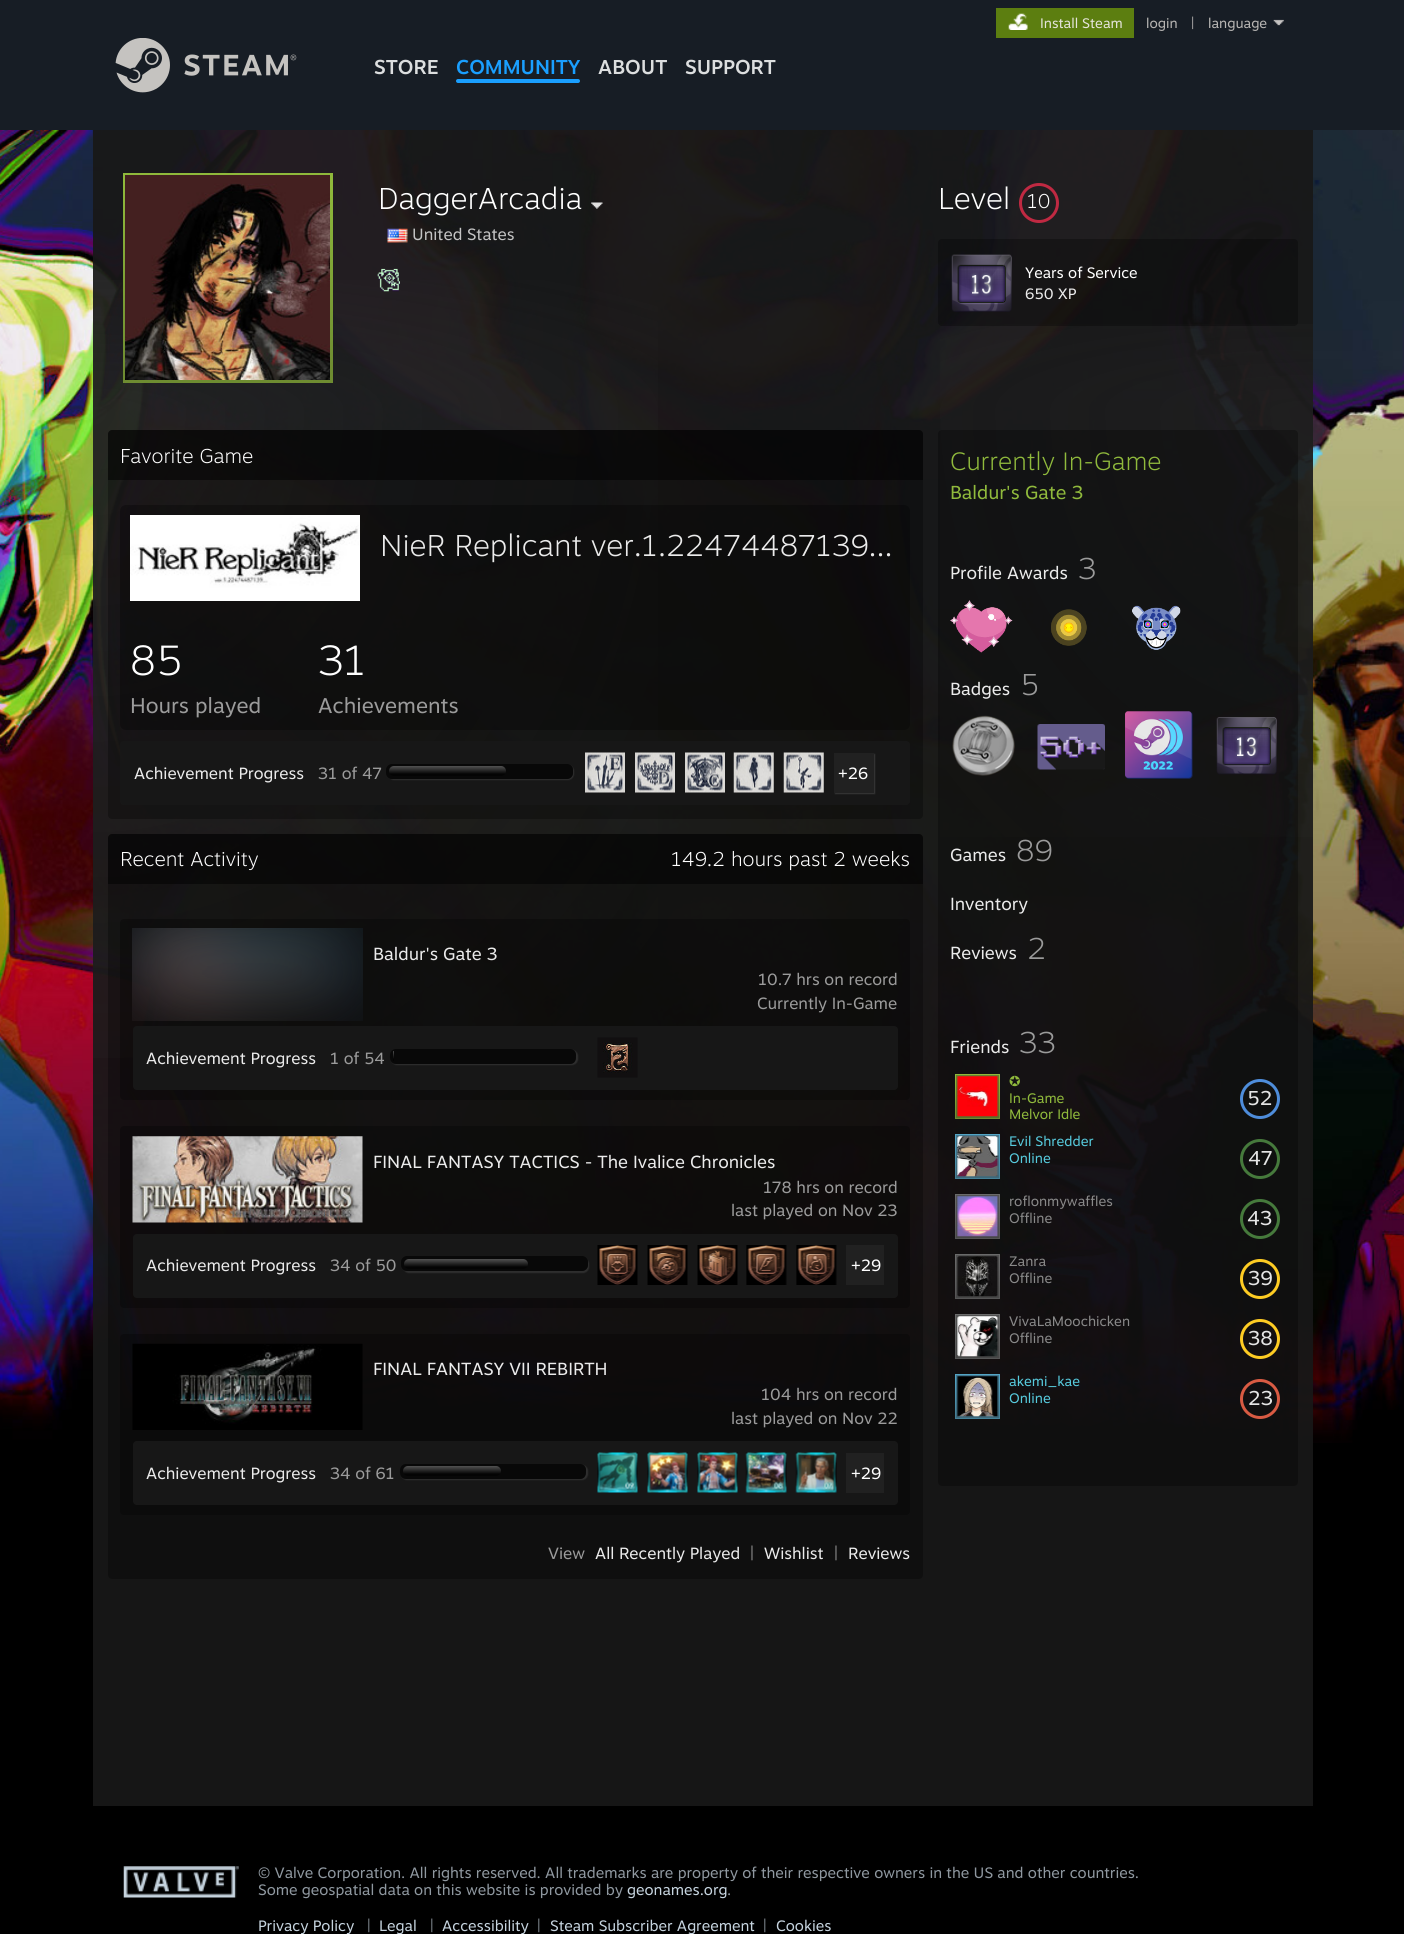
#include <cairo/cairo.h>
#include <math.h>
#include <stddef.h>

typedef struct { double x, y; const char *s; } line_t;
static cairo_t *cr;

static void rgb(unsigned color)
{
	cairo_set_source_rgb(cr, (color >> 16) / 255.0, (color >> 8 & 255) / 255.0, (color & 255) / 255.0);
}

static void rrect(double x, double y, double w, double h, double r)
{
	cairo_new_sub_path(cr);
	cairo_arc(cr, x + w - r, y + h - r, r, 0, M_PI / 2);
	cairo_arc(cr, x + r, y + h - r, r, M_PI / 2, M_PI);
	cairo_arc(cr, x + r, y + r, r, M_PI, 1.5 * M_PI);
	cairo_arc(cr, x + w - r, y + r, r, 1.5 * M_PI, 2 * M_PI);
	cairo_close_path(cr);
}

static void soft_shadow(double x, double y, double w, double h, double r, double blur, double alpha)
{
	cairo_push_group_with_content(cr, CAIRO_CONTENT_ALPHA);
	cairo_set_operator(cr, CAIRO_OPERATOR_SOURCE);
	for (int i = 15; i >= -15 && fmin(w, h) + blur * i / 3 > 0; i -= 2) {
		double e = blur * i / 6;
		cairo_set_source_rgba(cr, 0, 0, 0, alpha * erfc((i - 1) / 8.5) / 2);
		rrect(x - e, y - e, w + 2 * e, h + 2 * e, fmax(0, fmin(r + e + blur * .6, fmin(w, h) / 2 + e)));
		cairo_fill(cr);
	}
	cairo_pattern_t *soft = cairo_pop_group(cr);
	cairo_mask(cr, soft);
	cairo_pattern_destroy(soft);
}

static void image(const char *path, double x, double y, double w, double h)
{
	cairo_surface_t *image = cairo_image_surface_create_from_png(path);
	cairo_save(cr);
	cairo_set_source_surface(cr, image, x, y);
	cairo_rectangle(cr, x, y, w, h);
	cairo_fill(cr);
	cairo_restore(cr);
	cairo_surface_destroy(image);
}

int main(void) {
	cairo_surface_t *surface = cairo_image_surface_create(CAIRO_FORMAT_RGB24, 1404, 1934);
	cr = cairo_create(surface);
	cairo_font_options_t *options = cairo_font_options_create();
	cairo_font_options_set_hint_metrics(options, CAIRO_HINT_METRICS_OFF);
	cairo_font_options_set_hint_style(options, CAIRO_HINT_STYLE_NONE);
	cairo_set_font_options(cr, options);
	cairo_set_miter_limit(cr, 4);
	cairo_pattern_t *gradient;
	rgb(0x000000);
	cairo_paint(cr);
	rgb(0x171d25);
	cairo_rectangle(cr, 0, 0, 1404, 130);
	cairo_fill(cr);
	rgb(0x5c7e10);
	cairo_rectangle(cr, 996, 8, 138, 30);
	cairo_fill(cr);
	image("img/1.png", 1008, 13, 20, 17);
	image("img/2.png", 1273, 19, 11, 7);
	image("img/3.png", 115, 38, 182, 55);
	rgb(0x1a9fff);
	rrect(456, 79, 124, 4, 2);
	cairo_fill(cr);
	image("img/4.png", 0, 130, 1404, 1313);
	cairo_set_source_rgba(cr, 0.094, 0.094, 0.094, 0.93);
	cairo_rectangle(cr, 93, 130, 1220, 280);
	cairo_fill(cr);
	gradient = cairo_pattern_create_radial(0, 0, 0, 0, 0, 1);
	cairo_pattern_set_matrix(gradient, &(cairo_matrix_t){1.0 / 1725, 0, 0, 1.0 / 396, -1.0 * 93 / 1725, -1.0 * 410 / 396});
	cairo_pattern_add_color_stop_rgba(gradient, 0, 0.2, 0.2, 0.2, 0.37);
	cairo_pattern_add_color_stop_rgba(gradient, 0.43, 0.2, 0.2, 0.2, 0);
	cairo_set_source(cr, gradient);
	cairo_pattern_destroy(gradient);
	cairo_rectangle(cr, 93, 280, 565, 130);
	cairo_fill(cr);
	gradient = cairo_pattern_create_radial(0, 0, 0, 0, 0, 1);
	cairo_pattern_set_matrix(gradient, &(cairo_matrix_t){1.0 / 1220, 0, 0, 1.0 / 280, -1.0 * 1313 / 1220, -1.0 * 410 / 280});
	cairo_pattern_add_color_stop_rgba(gradient, 0, 0.192, 0.192, 0.192, 0.23);
	cairo_pattern_add_color_stop_rgba(gradient, 0.51, 0.192, 0.192, 0.192, 0);
	cairo_set_source(cr, gradient);
	cairo_pattern_destroy(gradient);
	cairo_rectangle(cr, 940, 324, 373, 86);
	cairo_fill(cr);
	gradient = cairo_pattern_create_linear(228, 173, 228, 383);
	cairo_pattern_add_color_stop_rgba(gradient, 0.05, 0.561, 0.725, 0.231, 1);
	cairo_pattern_add_color_stop_rgba(gradient, 0.95, 0.431, 0.549, 0.192, 1);
	cairo_set_source(cr, gradient);
	cairo_pattern_destroy(gradient);
	cairo_rectangle(cr, 123, 173, 210, 210);
	cairo_fill(cr);
	image("img/5.png", 125, 175, 205, 205);
	image("img/6.png", 591, 202, 12, 7);
	image("img/7.png", 387, 228, 21, 15);
	image("img/8.png", 377, 268, 23, 24);
	cairo_arc(cr, 1039, 203, 18.5, 0, 2 * M_PI);
	rgb(0xc02942);
	cairo_set_line_width(cr, 3);
	cairo_stroke(cr);
	cairo_set_source_rgba(cr, 0, 0, 0, 0.3);
	rrect(938, 239, 360, 87, 4);
	cairo_fill(cr);
	image("img/9.png", 951, 254, 61, 58);
	cairo_set_source_rgba(cr, 0.094, 0.094, 0.094, 0.93);
	cairo_rectangle(cr, 93, 410, 1220, 1396);
	cairo_fill(cr);
	gradient = cairo_pattern_create_radial(0, 0, 0, 0, 0, 1);
	cairo_pattern_set_matrix(gradient, &(cairo_matrix_t){1.0 / 1725, 0, 0, 1.0 / 1975, -1.0 * 93 / 1725, -1.0 * 410 / 1975});
	cairo_pattern_add_color_stop_rgba(gradient, 0, 0.2, 0.2, 0.2, 0.37);
	cairo_pattern_add_color_stop_rgba(gradient, 0.43, 0.2, 0.2, 0.2, 0);
	cairo_set_source(cr, gradient);
	cairo_pattern_destroy(gradient);
	cairo_rectangle(cr, 93, 410, 565, 648);
	cairo_fill(cr);
	gradient = cairo_pattern_create_radial(0, 0, 0, 0, 0, 1);
	cairo_pattern_set_matrix(gradient, &(cairo_matrix_t){1.0 / 1220, 0, 0, 1.0 / 1396, -1.0 * 1313 / 1220, -1.0 * 410 / 1396});
	cairo_pattern_add_color_stop_rgba(gradient, 0, 0.192, 0.192, 0.192, 0.23);
	cairo_pattern_add_color_stop_rgba(gradient, 0.51, 0.192, 0.192, 0.192, 0);
	cairo_set_source(cr, gradient);
	cairo_pattern_destroy(gradient);
	cairo_rectangle(cr, 940, 410, 373, 427);
	cairo_fill(cr);
	cairo_set_source_rgba(cr, 0, 0, 0, 0.3);
	rrect(108, 430, 815, 389, 4);
	cairo_fill(cr);
	cairo_set_source_rgba(cr, 0, 0, 0, 0.5);
	cairo_new_path(cr);
	cairo_move_to(cr, 112, 430);
	cairo_line_to(cr, 919, 430);
	cairo_curve_to(cr, 921, 430, 923, 432, 923, 434);
	cairo_line_to(cr, 923, 480);
	cairo_line_to(cr, 108, 480);
	cairo_line_to(cr, 108, 434);
	cairo_curve_to(cr, 108, 432, 110, 430, 112, 430);
	cairo_close_path(cr);
	cairo_fill(cr);
	cairo_set_source_rgba(cr, 0, 0, 0, 0.3);
	rrect(120, 505, 790, 225, 6);
	cairo_fill(cr);
	image("img/10.png", 130, 515, 230, 86);
	cairo_set_source_rgba(cr, 0.094, 0.094, 0.094, 0.93);
	rrect(120, 741, 790, 64, 4);
	cairo_fill(cr);
	cairo_save(cr);
	cairo_set_fill_rule(cr, CAIRO_FILL_RULE_EVEN_ODD);
	cairo_new_path(cr);
	cairo_move_to(cr, 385, 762);
	cairo_line_to(cr, 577, 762);
	cairo_line_to(cr, 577, 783);
	cairo_line_to(cr, 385, 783);
	cairo_close_path(cr);
	cairo_move_to(cr, 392, 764);
	cairo_line_to(cr, 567, 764);
	cairo_curve_to(cr, 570.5, 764, 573, 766.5, 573, 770);
	cairo_line_to(cr, 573, 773);
	cairo_curve_to(cr, 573, 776.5, 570.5, 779, 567, 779);
	cairo_line_to(cr, 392, 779);
	cairo_curve_to(cr, 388.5, 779, 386, 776.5, 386, 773);
	cairo_line_to(cr, 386, 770);
	cairo_curve_to(cr, 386, 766.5, 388.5, 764, 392, 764);
	cairo_close_path(cr);
	cairo_clip(cr);
	rgb(0xffffff);
	soft_shadow(388, 765, 186, 15, 6, 0.5, 0.1);
	cairo_restore(cr);
	cairo_set_source_rgba(cr, 0, 0, 0, 0.3);
	rrect(386, 764, 187, 15, 6);
	cairo_fill(cr);
	cairo_set_source_rgba(cr, 0, 0, 0, 0.5);
	cairo_new_path(cr);
	cairo_move_to(cr, 392, 764);
	cairo_line_to(cr, 567, 764);
	cairo_curve_to(cr, 570, 764, 573, 767, 573, 770);
	cairo_line_to(cr, 573, 773);
	cairo_curve_to(cr, 573, 776, 570, 779, 567, 779);
	cairo_line_to(cr, 392, 779);
	cairo_curve_to(cr, 389, 779, 386, 776, 386, 773);
	cairo_line_to(cr, 386, 770);
	cairo_curve_to(cr, 386, 767, 389, 764, 392, 764);
	cairo_close_path(cr);
	cairo_fill(cr);
	gradient = cairo_pattern_create_linear(448, 766, 448, 776);
	cairo_pattern_add_color_stop_rgba(gradient, 0, 0.322, 0.322, 0.322, 1);
	cairo_pattern_add_color_stop_rgba(gradient, 0.8, 0.016, 0.016, 0.016, 1);
	cairo_set_source(cr, gradient);
	cairo_pattern_destroy(gradient);
	rrect(389, 766, 117, 10, 5);
	cairo_fill(cr);
	image("img/11.png", 585, 752, 40, 41);
	image("img/12.png", 635, 752, 40, 41);
	image("img/13.png", 685, 752, 40, 41);
	image("img/14.png", 733, 752, 41, 41);
	image("img/15.png", 783, 752, 41, 41);
	rgb(0x353535);
	soft_shadow(835, 754, 40, 40, 0, 0.5, 1);
	rgb(0x212121);
	cairo_rectangle(cr, 834, 753, 40, 40);
	cairo_fill(cr);
	cairo_set_source_rgba(cr, 0, 0, 0, 0.3);
	rrect(108, 834, 815, 745, 4);
	cairo_fill(cr);
	cairo_set_source_rgba(cr, 0, 0, 0, 0.5);
	cairo_new_path(cr);
	cairo_move_to(cr, 112, 834);
	cairo_line_to(cr, 919, 834);
	cairo_curve_to(cr, 921, 834, 923, 836, 923, 838);
	cairo_line_to(cr, 923, 884);
	cairo_line_to(cr, 108, 884);
	cairo_line_to(cr, 108, 838);
	cairo_curve_to(cr, 108, 836, 110, 834, 112, 834);
	cairo_close_path(cr);
	cairo_fill(cr);
	cairo_set_source_rgba(cr, 0, 0, 0, 0.3);
	rrect(120, 919, 790, 181, 4);
	cairo_fill(cr);
	image("img/16.png", 132, 928, 231, 93);
	cairo_set_source_rgba(cr, 0.094, 0.094, 0.094, 0.93);
	rrect(133, 1026, 765, 64, 4);
	cairo_fill(cr);
	cairo_save(cr);
	cairo_set_fill_rule(cr, CAIRO_FILL_RULE_EVEN_ODD);
	cairo_new_path(cr);
	cairo_move_to(cr, 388, 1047);
	cairo_line_to(cr, 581, 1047);
	cairo_line_to(cr, 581, 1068);
	cairo_line_to(cr, 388, 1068);
	cairo_close_path(cr);
	cairo_move_to(cr, 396, 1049);
	cairo_line_to(cr, 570, 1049);
	cairo_curve_to(cr, 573.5, 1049, 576, 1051.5, 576, 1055);
	cairo_line_to(cr, 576, 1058);
	cairo_curve_to(cr, 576, 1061.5, 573.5, 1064, 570, 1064);
	cairo_line_to(cr, 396, 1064);
	cairo_curve_to(cr, 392.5, 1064, 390, 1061.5, 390, 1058);
	cairo_line_to(cr, 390, 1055);
	cairo_curve_to(cr, 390, 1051.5, 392.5, 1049, 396, 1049);
	cairo_close_path(cr);
	cairo_clip(cr);
	rgb(0xffffff);
	soft_shadow(391, 1050, 187, 15, 6, 0.5, 0.1);
	cairo_restore(cr);
	cairo_set_source_rgba(cr, 0, 0, 0, 0.3);
	rrect(390, 1049, 186, 15, 6);
	cairo_fill(cr);
	cairo_set_source_rgba(cr, 0, 0, 0, 0.5);
	cairo_new_path(cr);
	cairo_move_to(cr, 396, 1049);
	cairo_line_to(cr, 570, 1049);
	cairo_curve_to(cr, 573, 1049, 576, 1052, 576, 1055);
	cairo_curve_to(cr, 576, 1059, 575, 1064, 570, 1064);
	cairo_line_to(cr, 396, 1064);
	cairo_line_to(cr, 393, 1063);
	cairo_curve_to(cr, 388, 1060, 389, 1049, 396, 1049);
	cairo_close_path(cr);
	cairo_fill(cr);
	gradient = cairo_pattern_create_linear(393, 1051, 393, 1061);
	cairo_pattern_add_color_stop_rgba(gradient, 0, 0.322, 0.322, 0.322, 1);
	cairo_pattern_add_color_stop_rgba(gradient, 0.8, 0.016, 0.016, 0.016, 1);
	cairo_set_source(cr, gradient);
	cairo_pattern_destroy(gradient);
	rrect(393, 1051, 1, 10, 0.5);
	cairo_fill(cr);
	image("img/17.png", 597, 1037, 41, 41);
	cairo_set_source_rgba(cr, 0, 0, 0, 0.3);
	rrect(120, 1126, 790, 182, 4);
	cairo_fill(cr);
	image("img/18.png", 132, 1136, 231, 87);
	cairo_set_source_rgba(cr, 0.094, 0.094, 0.094, 0.93);
	rrect(133, 1234, 765, 64, 4);
	cairo_fill(cr);
	cairo_save(cr);
	cairo_set_fill_rule(cr, CAIRO_FILL_RULE_EVEN_ODD);
	cairo_new_path(cr);
	cairo_move_to(cr, 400, 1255);
	cairo_line_to(cr, 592, 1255);
	cairo_line_to(cr, 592, 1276);
	cairo_line_to(cr, 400, 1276);
	cairo_close_path(cr);
	cairo_move_to(cr, 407, 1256);
	cairo_line_to(cr, 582, 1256);
	cairo_curve_to(cr, 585.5, 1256, 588, 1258.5, 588, 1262);
	cairo_line_to(cr, 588, 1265);
	cairo_curve_to(cr, 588, 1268.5, 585.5, 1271, 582, 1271);
	cairo_line_to(cr, 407, 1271);
	cairo_curve_to(cr, 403.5, 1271, 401, 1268.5, 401, 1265);
	cairo_line_to(cr, 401, 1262);
	cairo_curve_to(cr, 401, 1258.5, 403.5, 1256, 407, 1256);
	cairo_close_path(cr);
	cairo_clip(cr);
	rgb(0xffffff);
	soft_shadow(403, 1258, 186, 15, 6, 0.5, 0.1);
	cairo_restore(cr);
	cairo_set_source_rgba(cr, 0, 0, 0, 0.3);
	rrect(401, 1256, 187, 15, 6);
	cairo_fill(cr);
	cairo_set_source_rgba(cr, 0, 0, 0, 0.5);
	cairo_new_path(cr);
	cairo_move_to(cr, 407, 1256);
	cairo_line_to(cr, 582, 1256);
	cairo_curve_to(cr, 585, 1256, 588, 1259, 588, 1262);
	cairo_line_to(cr, 588, 1265);
	cairo_curve_to(cr, 588, 1268, 585, 1271, 582, 1271);
	cairo_line_to(cr, 407, 1271);
	cairo_curve_to(cr, 404, 1271, 401, 1268, 401, 1265);
	cairo_line_to(cr, 401, 1262);
	cairo_curve_to(cr, 401, 1259, 404, 1256, 407, 1256);
	cairo_close_path(cr);
	cairo_fill(cr);
	gradient = cairo_pattern_create_linear(466, 1259, 466, 1269);
	cairo_pattern_add_color_stop_rgba(gradient, 0, 0.322, 0.322, 0.322, 1);
	cairo_pattern_add_color_stop_rgba(gradient, 0.8, 0.016, 0.016, 0.016, 1);
	cairo_set_source(cr, gradient);
	cairo_pattern_destroy(gradient);
	rrect(404, 1259, 124, 10, 5);
	cairo_fill(cr);
	image("img/19.png", 597, 1245, 41, 40);
	image("img/20.png", 647, 1245, 41, 40);
	image("img/21.png", 697, 1245, 41, 40);
	image("img/22.png", 746, 1245, 41, 40);
	image("img/23.png", 796, 1245, 41, 40);
	rgb(0x212121);
	cairo_rectangle(cr, 846, 1245, 38, 40);
	cairo_fill(cr);
	cairo_set_source_rgba(cr, 0, 0, 0, 0.3);
	rrect(120, 1334, 790, 181, 4);
	cairo_fill(cr);
	image("img/24.png", 132, 1343, 231, 87);
	rgb(0x171717);
	rrect(133, 1441, 765, 64, 4);
	cairo_fill(cr);
	cairo_save(cr);
	cairo_set_fill_rule(cr, CAIRO_FILL_RULE_EVEN_ODD);
	cairo_new_path(cr);
	cairo_move_to(cr, 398, 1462);
	cairo_line_to(cr, 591, 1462);
	cairo_line_to(cr, 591, 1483);
	cairo_line_to(cr, 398, 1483);
	cairo_close_path(cr);
	cairo_move_to(cr, 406, 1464);
	cairo_line_to(cr, 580, 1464);
	cairo_curve_to(cr, 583.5, 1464, 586, 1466.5, 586, 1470);
	cairo_line_to(cr, 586, 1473);
	cairo_curve_to(cr, 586, 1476.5, 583.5, 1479, 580, 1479);
	cairo_line_to(cr, 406, 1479);
	cairo_curve_to(cr, 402.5, 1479, 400, 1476.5, 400, 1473);
	cairo_line_to(cr, 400, 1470);
	cairo_curve_to(cr, 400, 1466.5, 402.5, 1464, 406, 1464);
	cairo_close_path(cr);
	cairo_clip(cr);
	rgb(0xffffff);
	soft_shadow(401, 1465, 187, 15, 6, 0.5, 0.1);
	cairo_restore(cr);
	cairo_set_source_rgba(cr, 0, 0, 0, 0.3);
	rrect(400, 1464, 186, 15, 6);
	cairo_fill(cr);
	cairo_set_source_rgba(cr, 0, 0, 0, 0.5);
	cairo_new_path(cr);
	cairo_move_to(cr, 406, 1464);
	cairo_line_to(cr, 580, 1464);
	cairo_curve_to(cr, 583, 1464, 586, 1467, 586, 1470);
	cairo_curve_to(cr, 586, 1474, 585, 1479, 580, 1479);
	cairo_line_to(cr, 406, 1479);
	cairo_line_to(cr, 403, 1478);
	cairo_curve_to(cr, 398, 1475, 399, 1464, 406, 1464);
	cairo_close_path(cr);
	cairo_fill(cr);
	gradient = cairo_pattern_create_linear(452, 1466, 452, 1476);
	cairo_pattern_add_color_stop_rgba(gradient, 0, 0.322, 0.322, 0.322, 1);
	cairo_pattern_add_color_stop_rgba(gradient, 0.8, 0.016, 0.016, 0.016, 1);
	cairo_set_source(cr, gradient);
	cairo_pattern_destroy(gradient);
	rrect(403, 1466, 98, 10, 5);
	cairo_fill(cr);
	image("img/25.png", 597, 1452, 41, 41);
	image("img/26.png", 647, 1452, 41, 41);
	image("img/27.png", 697, 1452, 41, 41);
	image("img/28.png", 745, 1452, 42, 41);
	image("img/29.png", 795, 1452, 42, 41);
	rgb(0x212121);
	cairo_rectangle(cr, 846, 1453, 38, 40);
	cairo_fill(cr);
	cairo_set_source_rgba(cr, 0, 0, 0, 0.3);
	rrect(938, 430, 360, 1056, 4);
	cairo_fill(cr);
	image("img/30.png", 950, 600, 63, 53);
	image("img/31.png", 1051, 609, 36, 37);
	image("img/32.png", 1132, 605, 49, 45);
	image("img/33.png", 952, 715, 63, 61);
	image("img/34.png", 1037, 724, 68, 46);
	image("img/35.png", 1125, 711, 68, 68);
	image("img/36.png", 1216, 717, 61, 58);
	gradient = cairo_pattern_create_linear(978, 1074, 978, 1119);
	cairo_pattern_add_color_stop_rgba(gradient, 0.05, 0.561, 0.725, 0.231, 1);
	cairo_pattern_add_color_stop_rgba(gradient, 0.95, 0.431, 0.549, 0.192, 1);
	cairo_set_source(cr, gradient);
	cairo_pattern_destroy(gradient);
	cairo_rectangle(cr, 955, 1074, 45, 45);
	cairo_fill(cr);
	gradient = cairo_pattern_create_linear(978, 1075, 978, 1118);
	cairo_pattern_add_color_stop_rgba(gradient, 0.05, 0.4, 0.506, 0.18, 1);
	cairo_pattern_add_color_stop_rgba(gradient, 0.95, 0.349, 0.439, 0.169, 1);
	cairo_set_source(cr, gradient);
	cairo_pattern_destroy(gradient);
	cairo_rectangle(cr, 956, 1075, 43, 43);
	cairo_fill(cr);
	image("img/37.png", 957, 1076, 42, 41);
	cairo_arc(cr, 1260, 1099, 18.5, 0, 2 * M_PI);
	rgb(0x4e8ddb);
	cairo_stroke(cr);
	gradient = cairo_pattern_create_linear(978, 1134, 978, 1179);
	cairo_pattern_add_color_stop_rgba(gradient, 0.05, 0.325, 0.643, 0.769, 1);
	cairo_pattern_add_color_stop_rgba(gradient, 0.95, 0.271, 0.502, 0.592, 1);
	cairo_set_source(cr, gradient);
	cairo_pattern_destroy(gradient);
	cairo_rectangle(cr, 955, 1134, 45, 45);
	cairo_fill(cr);
	gradient = cairo_pattern_create_linear(978, 1135, 978, 1178);
	cairo_pattern_add_color_stop_rgba(gradient, 0.05, 0.255, 0.467, 0.561, 1);
	cairo_pattern_add_color_stop_rgba(gradient, 0.95, 0.239, 0.412, 0.482, 1);
	cairo_set_source(cr, gradient);
	cairo_pattern_destroy(gradient);
	cairo_rectangle(cr, 956, 1135, 43, 43);
	cairo_fill(cr);
	image("img/38.png", 957, 1136, 42, 41);
	cairo_arc(cr, 1260, 1159, 18.5, 0, 2 * M_PI);
	rgb(0x467a3c);
	cairo_stroke(cr);
	gradient = cairo_pattern_create_linear(978, 1194, 978, 1239);
	cairo_pattern_add_color_stop_rgba(gradient, 0.05, 0.416, 0.416, 0.416, 1);
	cairo_pattern_add_color_stop_rgba(gradient, 0.95, 0.333, 0.333, 0.333, 1);
	cairo_set_source(cr, gradient);
	cairo_pattern_destroy(gradient);
	cairo_rectangle(cr, 955, 1194, 45, 45);
	cairo_fill(cr);
	gradient = cairo_pattern_create_linear(978, 1195, 978, 1238);
	cairo_pattern_add_color_stop_rgba(gradient, 0.05, 0.318, 0.318, 0.318, 1);
	cairo_pattern_add_color_stop_rgba(gradient, 0.95, 0.278, 0.278, 0.278, 1);
	cairo_set_source(cr, gradient);
	cairo_pattern_destroy(gradient);
	cairo_rectangle(cr, 956, 1195, 43, 43);
	cairo_fill(cr);
	image("img/39.png", 957, 1196, 42, 41);
	cairo_arc(cr, 1260, 1219, 18.5, 0, 2 * M_PI);
	rgb(0x467a3c);
	cairo_stroke(cr);
	gradient = cairo_pattern_create_linear(978, 1254, 978, 1299);
	cairo_pattern_add_color_stop_rgba(gradient, 0.05, 0.416, 0.416, 0.416, 1);
	cairo_pattern_add_color_stop_rgba(gradient, 0.95, 0.333, 0.333, 0.333, 1);
	cairo_set_source(cr, gradient);
	cairo_pattern_destroy(gradient);
	cairo_rectangle(cr, 955, 1254, 45, 45);
	cairo_fill(cr);
	gradient = cairo_pattern_create_linear(978, 1255, 978, 1298);
	cairo_pattern_add_color_stop_rgba(gradient, 0.05, 0.318, 0.318, 0.318, 1);
	cairo_pattern_add_color_stop_rgba(gradient, 0.95, 0.278, 0.278, 0.278, 1);
	cairo_set_source(cr, gradient);
	cairo_pattern_destroy(gradient);
	cairo_rectangle(cr, 956, 1255, 43, 43);
	cairo_fill(cr);
	image("img/40.png", 957, 1256, 42, 41);
	cairo_arc(cr, 1260, 1279, 18.5, 0, 2 * M_PI);
	rgb(0xfecc23);
	cairo_stroke(cr);
	gradient = cairo_pattern_create_linear(978, 1314, 978, 1359);
	cairo_pattern_add_color_stop_rgba(gradient, 0.05, 0.416, 0.416, 0.416, 1);
	cairo_pattern_add_color_stop_rgba(gradient, 0.95, 0.333, 0.333, 0.333, 1);
	cairo_set_source(cr, gradient);
	cairo_pattern_destroy(gradient);
	cairo_rectangle(cr, 955, 1314, 45, 45);
	cairo_fill(cr);
	gradient = cairo_pattern_create_linear(978, 1315, 978, 1358);
	cairo_pattern_add_color_stop_rgba(gradient, 0.05, 0.318, 0.318, 0.318, 1);
	cairo_pattern_add_color_stop_rgba(gradient, 0.95, 0.278, 0.278, 0.278, 1);
	cairo_set_source(cr, gradient);
	cairo_pattern_destroy(gradient);
	cairo_rectangle(cr, 956, 1315, 43, 43);
	cairo_fill(cr);
	image("img/41.png", 957, 1316, 42, 41);
	cairo_arc(cr, 1260, 1339, 18.5, 0, 2 * M_PI);
	rgb(0xfecc23);
	cairo_stroke(cr);
	gradient = cairo_pattern_create_linear(978, 1374, 978, 1419);
	cairo_pattern_add_color_stop_rgba(gradient, 0.05, 0.325, 0.643, 0.769, 1);
	cairo_pattern_add_color_stop_rgba(gradient, 0.95, 0.271, 0.502, 0.592, 1);
	cairo_set_source(cr, gradient);
	cairo_pattern_destroy(gradient);
	cairo_rectangle(cr, 955, 1374, 45, 45);
	cairo_fill(cr);
	gradient = cairo_pattern_create_linear(978, 1375, 978, 1418);
	cairo_pattern_add_color_stop_rgba(gradient, 0.05, 0.255, 0.467, 0.561, 1);
	cairo_pattern_add_color_stop_rgba(gradient, 0.95, 0.239, 0.412, 0.482, 1);
	cairo_set_source(cr, gradient);
	cairo_pattern_destroy(gradient);
	cairo_rectangle(cr, 956, 1375, 43, 43);
	cairo_fill(cr);
	image("img/42.png", 957, 1376, 42, 41);
	cairo_arc(cr, 1260, 1399, 18.5, 0, 2 * M_PI);
	rgb(0xd95b43);
	cairo_stroke(cr);
	image("img/43.png", 123, 1866, 116, 32);
	cairo_select_font_face(cr, "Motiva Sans", CAIRO_FONT_SLANT_NORMAL, CAIRO_FONT_WEIGHT_NORMAL);
	cairo_set_font_size(cr, 13.75);
	rgb(0xe5e4dc);
	cairo_move_to(cr, 1040, 28);
	cairo_show_text(cr, "Install Steam");
	rgb(0xb8b6b4);
	{
		static const line_t items[] = {
			{1146, 28, "login"},
			{1191, 28, "|"},
			{1208, 28, "language"},
		};
		for (size_t i = 0; i < sizeof items / sizeof *items; i++) {
			cairo_move_to(cr, items[i].x, items[i].y);
			cairo_show_text(cr, items[i].s);
		}
	}
	cairo_select_font_face(cr, "Motiva Sans Medium", CAIRO_FONT_SLANT_NORMAL, CAIRO_FONT_WEIGHT_NORMAL);
	cairo_set_font_size(cr, 20);
	rgb(0xdcdedf);
	cairo_move_to(cr, 374, 74);
	cairo_show_text(cr, "STORE");
	rgb(0x1a9fff);
	cairo_move_to(cr, 456, 74);
	cairo_show_text(cr, "COMMUNITY");
	rgb(0xdcdedf);
	cairo_move_to(cr, 598, 74);
	cairo_show_text(cr, "ABOUT");
	cairo_move_to(cr, 685, 74);
	cairo_show_text(cr, "SUPPORT");
	cairo_select_font_face(cr, "Motiva Sans Thin", CAIRO_FONT_SLANT_NORMAL, CAIRO_FONT_WEIGHT_NORMAL);
	cairo_set_font_size(cr, 30);
	rgb(0xffffff);
	cairo_move_to(cr, 378, 209);
	cairo_show_text(cr, "DaggerArcadia");
	cairo_select_font_face(cr, "Motiva Sans", CAIRO_FONT_SLANT_NORMAL, CAIRO_FONT_WEIGHT_NORMAL);
	cairo_set_font_size(cr, 16.25);
	rgb(0xc4c4c4);
	cairo_move_to(cr, 412, 240);
	cairo_show_text(cr, "United States");
	cairo_select_font_face(cr, "Motiva Sans Thin", CAIRO_FONT_SLANT_NORMAL, CAIRO_FONT_WEIGHT_NORMAL);
	cairo_set_font_size(cr, 30);
	rgb(0xffffff);
	cairo_move_to(cr, 938, 209);
	cairo_show_text(cr, "Level");
	cairo_set_font_size(cr, 20);
	cairo_move_to(cr, 1027, 208);
	cairo_show_text(cr, "10");
	cairo_select_font_face(cr, "Motiva Sans", CAIRO_FONT_SLANT_NORMAL, CAIRO_FONT_WEIGHT_NORMAL);
	cairo_set_font_size(cr, 15);
	cairo_move_to(cr, 1025, 278);
	cairo_show_text(cr, "Years of Service");
	rgb(0xebebeb);
	cairo_move_to(cr, 1025, 299);
	cairo_show_text(cr, "650 XP");
	cairo_select_font_face(cr, "Motiva Sans Thin", CAIRO_FONT_SLANT_NORMAL, CAIRO_FONT_WEIGHT_NORMAL);
	cairo_set_font_size(cr, 20);
	rgb(0xffffff);
	cairo_move_to(cr, 120, 463);
	cairo_show_text(cr, "Favorite Game");
	cairo_set_font_size(cr, 30);
	rgb(0xebebeb);
	cairo_move_to(cr, 380, 556);
	cairo_show_text(cr, "NieR Replicant ver.1.22474487139...");
	cairo_set_font_size(cr, 42);
	rgb(0xffffff);
	cairo_move_to(cr, 130, 675);
	cairo_show_text(cr, "85");
	cairo_select_font_face(cr, "Motiva Sans", CAIRO_FONT_SLANT_NORMAL, CAIRO_FONT_WEIGHT_NORMAL);
	cairo_set_font_size(cr, 21.25);
	rgb(0x9b9b9b);
	cairo_move_to(cr, 130, 713);
	cairo_show_text(cr, "Hours played");
	cairo_select_font_face(cr, "Motiva Sans Thin", CAIRO_FONT_SLANT_NORMAL, CAIRO_FONT_WEIGHT_NORMAL);
	cairo_set_font_size(cr, 42);
	rgb(0xffffff);
	cairo_move_to(cr, 318, 675);
	cairo_show_text(cr, "31");
	cairo_select_font_face(cr, "Motiva Sans", CAIRO_FONT_SLANT_NORMAL, CAIRO_FONT_WEIGHT_NORMAL);
	cairo_set_font_size(cr, 21.25);
	rgb(0x9b9b9b);
	cairo_move_to(cr, 318, 713);
	cairo_show_text(cr, "Achievements");
	cairo_set_font_size(cr, 16.25);
	rgb(0xebebeb);
	cairo_move_to(cr, 134, 779);
	cairo_show_text(cr, "Achievement Progress");
	rgb(0x9b9b9b);
	cairo_move_to(cr, 318, 779);
	cairo_show_text(cr, "31 of 47");
	rgb(0xffffff);
	cairo_move_to(cr, 838, 779);
	cairo_show_text(cr, "+26");
	cairo_select_font_face(cr, "Motiva Sans Thin", CAIRO_FONT_SLANT_NORMAL, CAIRO_FONT_WEIGHT_NORMAL);
	cairo_set_font_size(cr, 20);
	cairo_move_to(cr, 120, 866);
	cairo_show_text(cr, "Recent Activity");
	cairo_move_to(cr, 671, 866);
	cairo_show_text(cr, "149.2 hours past 2 weeks");
	cairo_select_font_face(cr, "Motiva Sans", CAIRO_FONT_SLANT_NORMAL, CAIRO_FONT_WEIGHT_NORMAL);
	cairo_set_font_size(cr, 17.5);
	rgb(0xebebeb);
	cairo_move_to(cr, 373, 960);
	cairo_show_text(cr, "Baldur's Gate 3");
	cairo_set_font_size(cr, 16.25);
	rgb(0x9b9b9b);
	cairo_move_to(cr, 758, 985);
	cairo_show_text(cr, "10.7 hrs on record");
	cairo_move_to(cr, 757, 1009);
	cairo_show_text(cr, "Currently In-Game");
	rgb(0xebebeb);
	cairo_move_to(cr, 146, 1064);
	cairo_show_text(cr, "Achievement Progress");
	rgb(0x9b9b9b);
	cairo_move_to(cr, 330, 1064);
	cairo_show_text(cr, "1 of 54");
	cairo_set_font_size(cr, 17.5);
	rgb(0xebebeb);
	cairo_move_to(cr, 373, 1168);
	cairo_show_text(cr, "FINAL FANTASY TACTICS - The Ivalice Chronicles");
	cairo_set_font_size(cr, 16.25);
	rgb(0x9b9b9b);
	cairo_move_to(cr, 763, 1193);
	cairo_show_text(cr, "178 hrs on record");
	cairo_move_to(cr, 731, 1216);
	cairo_show_text(cr, "last played on Nov 23");
	rgb(0xebebeb);
	cairo_move_to(cr, 146, 1271);
	cairo_show_text(cr, "Achievement Progress");
	rgb(0x9b9b9b);
	cairo_move_to(cr, 330, 1271);
	cairo_show_text(cr, "34 of 50");
	rgb(0xffffff);
	cairo_move_to(cr, 851, 1271);
	cairo_show_text(cr, "+29");
	cairo_set_font_size(cr, 17.5);
	rgb(0xebebeb);
	cairo_move_to(cr, 373, 1375);
	cairo_show_text(cr, "FINAL FANTASY VII REBIRTH");
	cairo_set_font_size(cr, 16.25);
	rgb(0x9b9b9b);
	cairo_move_to(cr, 761, 1400);
	cairo_show_text(cr, "104 hrs on record");
	cairo_move_to(cr, 731, 1424);
	cairo_show_text(cr, "last played on Nov 22");
	rgb(0xebebeb);
	cairo_move_to(cr, 146, 1479);
	cairo_show_text(cr, "Achievement Progress");
	rgb(0x9b9b9b);
	cairo_move_to(cr, 330, 1479);
	cairo_show_text(cr, "34 of 61");
	rgb(0xffffff);
	cairo_move_to(cr, 851, 1479);
	cairo_show_text(cr, "+29");
	rgb(0x9b9b9b);
	cairo_move_to(cr, 548, 1559);
	cairo_show_text(cr, "View");
	rgb(0xebebeb);
	cairo_move_to(cr, 595, 1559);
	cairo_show_text(cr, "All Recently Played");
	rgb(0x9b9b9b);
	cairo_move_to(cr, 750, 1559);
	cairo_show_text(cr, "|");
	rgb(0xebebeb);
	cairo_move_to(cr, 764, 1559);
	cairo_show_text(cr, "Wishlist");
	rgb(0x9b9b9b);
	cairo_move_to(cr, 834, 1559);
	cairo_show_text(cr, "|");
	rgb(0xebebeb);
	cairo_move_to(cr, 848, 1559);
	cairo_show_text(cr, "Reviews");
	cairo_select_font_face(cr, "Motiva Sans Thin", CAIRO_FONT_SLANT_NORMAL, CAIRO_FONT_WEIGHT_NORMAL);
	cairo_set_font_size(cr, 25);
	rgb(0x90ba3c);
	cairo_move_to(cr, 950, 470);
	cairo_show_text(cr, "Currently In-Game");
	cairo_select_font_face(cr, "Motiva Sans", CAIRO_FONT_SLANT_NORMAL, CAIRO_FONT_WEIGHT_NORMAL);
	cairo_set_font_size(cr, 18.75);
	cairo_move_to(cr, 950, 499);
	cairo_show_text(cr, "Baldur's Gate 3");
	cairo_set_font_size(cr, 17.5);
	rgb(0xebebeb);
	cairo_move_to(cr, 950, 579);
	cairo_show_text(cr, "Profile Awards");
	cairo_select_font_face(cr, "Motiva Sans Thin", CAIRO_FONT_SLANT_NORMAL, CAIRO_FONT_WEIGHT_NORMAL);
	cairo_set_font_size(cr, 30);
	rgb(0x9b9b9b);
	cairo_move_to(cr, 1078, 579);
	cairo_show_text(cr, "3");
	cairo_select_font_face(cr, "Motiva Sans", CAIRO_FONT_SLANT_NORMAL, CAIRO_FONT_WEIGHT_NORMAL);
	cairo_set_font_size(cr, 17.5);
	rgb(0xebebeb);
	cairo_move_to(cr, 950, 695);
	cairo_show_text(cr, "Badges");
	cairo_select_font_face(cr, "Motiva Sans Thin", CAIRO_FONT_SLANT_NORMAL, CAIRO_FONT_WEIGHT_NORMAL);
	cairo_set_font_size(cr, 30);
	rgb(0x9b9b9b);
	cairo_move_to(cr, 1020, 695);
	cairo_show_text(cr, "5");
	cairo_select_font_face(cr, "Motiva Sans", CAIRO_FONT_SLANT_NORMAL, CAIRO_FONT_WEIGHT_NORMAL);
	cairo_set_font_size(cr, 17.5);
	rgb(0xebebeb);
	cairo_move_to(cr, 950, 861);
	cairo_show_text(cr, "Games");
	cairo_select_font_face(cr, "Motiva Sans Thin", CAIRO_FONT_SLANT_NORMAL, CAIRO_FONT_WEIGHT_NORMAL);
	cairo_set_font_size(cr, 30);
	rgb(0x9b9b9b);
	cairo_move_to(cr, 1016, 861);
	cairo_show_text(cr, "89");
	cairo_select_font_face(cr, "Motiva Sans", CAIRO_FONT_SLANT_NORMAL, CAIRO_FONT_WEIGHT_NORMAL);
	cairo_set_font_size(cr, 17.5);
	rgb(0xebebeb);
	cairo_move_to(cr, 950, 910);
	cairo_show_text(cr, "Inventory");
	cairo_move_to(cr, 950, 959);
	cairo_show_text(cr, "Reviews");
	cairo_select_font_face(cr, "Motiva Sans Thin", CAIRO_FONT_SLANT_NORMAL, CAIRO_FONT_WEIGHT_NORMAL);
	cairo_set_font_size(cr, 30);
	rgb(0x9b9b9b);
	cairo_move_to(cr, 1027, 959);
	cairo_show_text(cr, "2");
	cairo_select_font_face(cr, "Motiva Sans", CAIRO_FONT_SLANT_NORMAL, CAIRO_FONT_WEIGHT_NORMAL);
	cairo_set_font_size(cr, 17.5);
	rgb(0xebebeb);
	cairo_move_to(cr, 950, 1053);
	cairo_show_text(cr, "Friends");
	cairo_select_font_face(cr, "Motiva Sans Thin", CAIRO_FONT_SLANT_NORMAL, CAIRO_FONT_WEIGHT_NORMAL);
	cairo_set_font_size(cr, 30);
	rgb(0x9b9b9b);
	cairo_move_to(cr, 1019, 1053);
	cairo_show_text(cr, "33");
	cairo_select_font_face(cr, "DejaVu Sans", CAIRO_FONT_SLANT_NORMAL, CAIRO_FONT_WEIGHT_NORMAL);
	cairo_set_font_size(cr, 13.75);
	rgb(0x90ba3c);
	cairo_move_to(cr, 1009, 1086);
	cairo_show_text(cr, "✪");
	cairo_select_font_face(cr, "Motiva Sans", CAIRO_FONT_SLANT_NORMAL, CAIRO_FONT_WEIGHT_NORMAL);
	cairo_move_to(cr, 1009, 1103);
	cairo_show_text(cr, "In-Game");
	cairo_move_to(cr, 1009, 1119);
	cairo_show_text(cr, "Melvor Idle");
	cairo_set_font_size(cr, 20);
	rgb(0xe5e5e5);
	cairo_move_to(cr, 1247, 1105);
	cairo_show_text(cr, "52");
	cairo_set_font_size(cr, 13.75);
	rgb(0x57cbde);
	cairo_move_to(cr, 1009, 1146);
	cairo_show_text(cr, "Evil Shredder");
	cairo_move_to(cr, 1009, 1163);
	cairo_show_text(cr, "Online");
	cairo_set_font_size(cr, 20);
	rgb(0xe5e5e5);
	cairo_move_to(cr, 1248, 1165);
	cairo_show_text(cr, "47");
	cairo_set_font_size(cr, 13.75);
	rgb(0x898989);
	cairo_move_to(cr, 1009, 1206);
	cairo_show_text(cr, "roflonmywaffles");
	cairo_move_to(cr, 1009, 1223);
	cairo_show_text(cr, "Offline");
	cairo_set_font_size(cr, 20);
	rgb(0xe5e5e5);
	cairo_move_to(cr, 1247, 1225);
	cairo_show_text(cr, "43");
	cairo_set_font_size(cr, 13.75);
	rgb(0x898989);
	cairo_move_to(cr, 1009, 1266);
	cairo_show_text(cr, "Zanra");
	cairo_move_to(cr, 1009, 1283);
	cairo_show_text(cr, "Offline");
	cairo_set_font_size(cr, 20);
	rgb(0xe5e5e5);
	cairo_move_to(cr, 1248, 1285);
	cairo_show_text(cr, "39");
	cairo_set_font_size(cr, 13.75);
	rgb(0x898989);
	cairo_move_to(cr, 1009, 1326);
	cairo_show_text(cr, "VivaLaMoochicken");
	cairo_move_to(cr, 1009, 1343);
	cairo_show_text(cr, "Offline");
	cairo_set_font_size(cr, 20);
	rgb(0xe5e5e5);
	cairo_move_to(cr, 1248, 1345);
	cairo_show_text(cr, "38");
	cairo_set_font_size(cr, 13.75);
	rgb(0x57cbde);
	cairo_move_to(cr, 1009, 1386);
	cairo_show_text(cr, "akemi_kae");
	cairo_move_to(cr, 1009, 1403);
	cairo_show_text(cr, "Online");
	cairo_set_font_size(cr, 20);
	rgb(0xe5e5e5);
	cairo_move_to(cr, 1248, 1405);
	cairo_show_text(cr, "23");
	cairo_set_font_size(cr, 15);
	rgb(0x8f98a0);
	cairo_move_to(cr, 258, 1878);
	cairo_show_text(cr, "© Valve Corporation. All rights reserved. All trademarks are property of their respective owners in the US and other countries.");
	cairo_move_to(cr, 258, 1895);
	cairo_show_text(cr, "Some geospatial data on this website is provided by");
	rgb(0xc6d4df);
	cairo_move_to(cr, 627, 1895);
	cairo_show_text(cr, "geonames.org");
	rgb(0x8f98a0);
	cairo_move_to(cr, 727, 1895);
	cairo_show_text(cr, ".");
	rgb(0xc6d4df);
	cairo_move_to(cr, 258, 1931);
	cairo_show_text(cr, "Privacy Policy");
	rgb(0x8f98a0);
	cairo_move_to(cr, 367, 1931);
	cairo_show_text(cr, "|");
	rgb(0xc6d4df);
	cairo_move_to(cr, 379, 1931);
	cairo_show_text(cr, "Legal");
	rgb(0x8f98a0);
	cairo_move_to(cr, 430, 1931);
	cairo_show_text(cr, "|");
	rgb(0xc6d4df);
	cairo_move_to(cr, 442, 1931);
	cairo_show_text(cr, "Accessibility");
	rgb(0x8f98a0);
	cairo_move_to(cr, 537, 1931);
	cairo_show_text(cr, "|");
	rgb(0xc6d4df);
	cairo_move_to(cr, 550, 1931);
	cairo_show_text(cr, "Steam Subscriber Agreement");
	rgb(0x8f98a0);
	cairo_move_to(cr, 763, 1931);
	cairo_show_text(cr, "|");
	rgb(0xc6d4df);
	cairo_move_to(cr, 776, 1931);
	cairo_show_text(cr, "Cookies");
	cairo_surface_write_to_png(surface, "page.png");
	cairo_font_options_destroy(options);
	cairo_destroy(cr);
	cairo_surface_destroy(surface);
	return 0;
}
